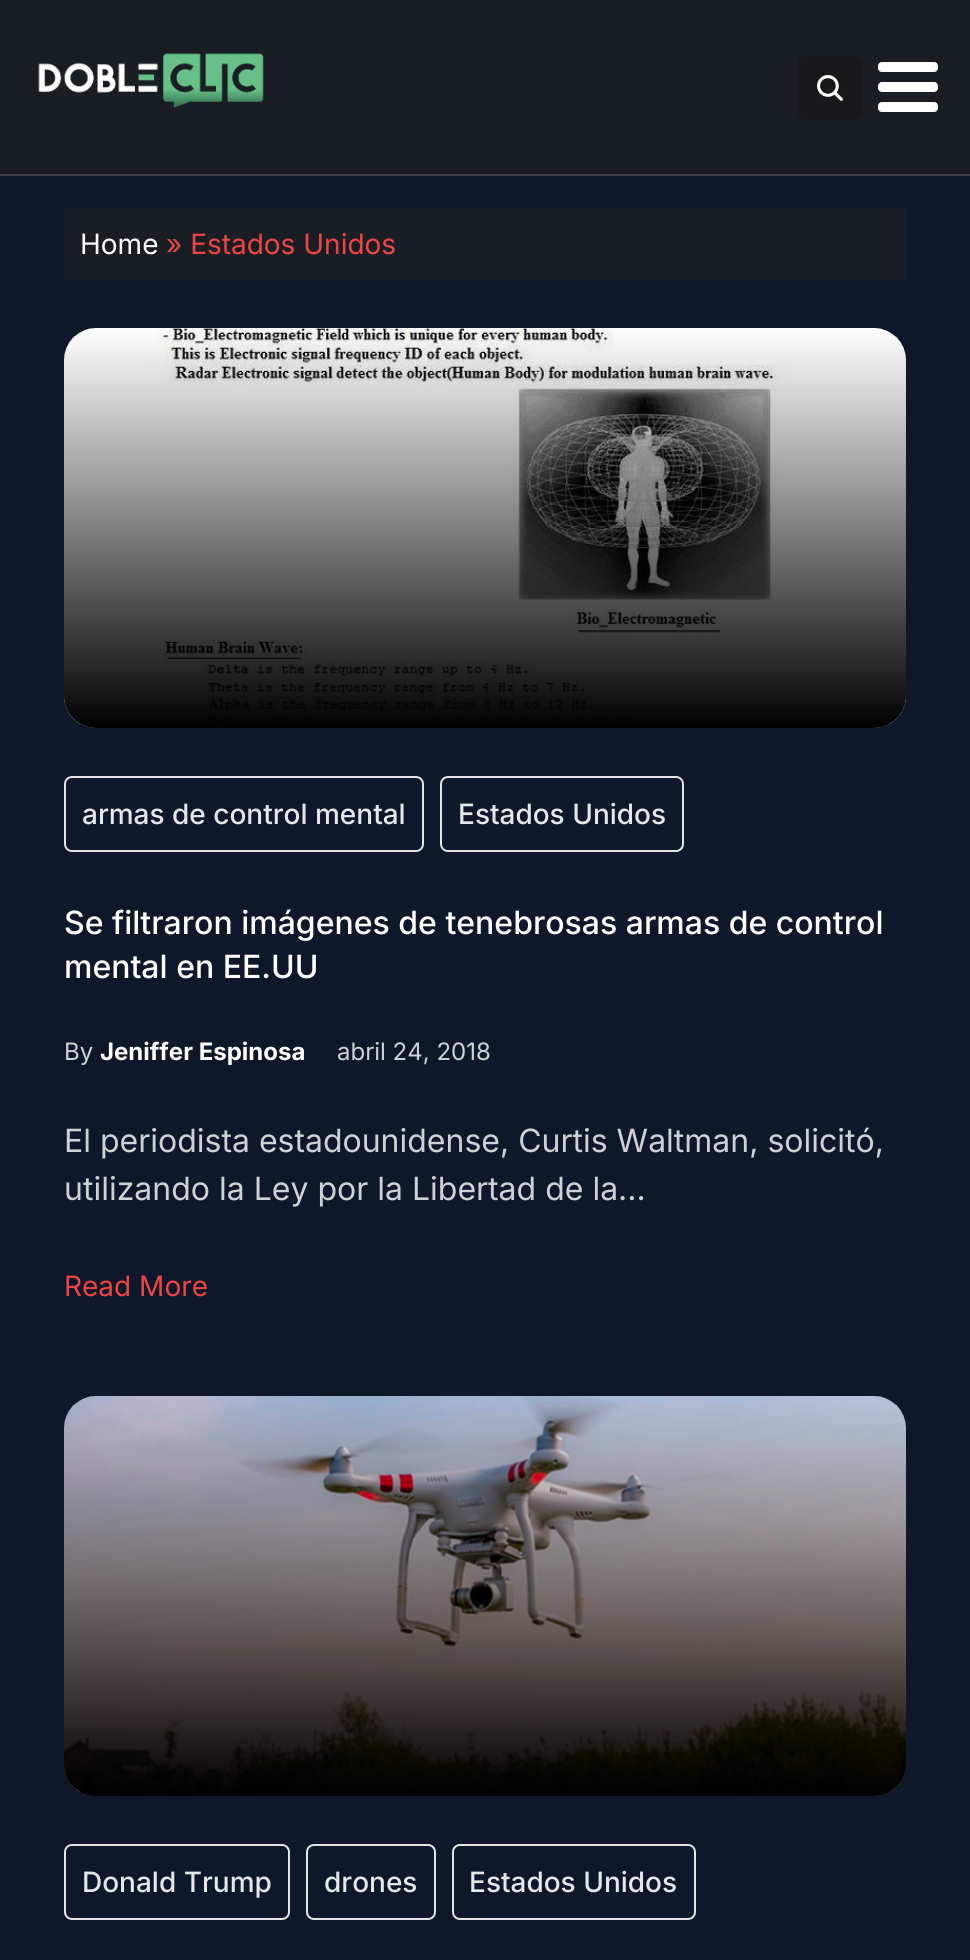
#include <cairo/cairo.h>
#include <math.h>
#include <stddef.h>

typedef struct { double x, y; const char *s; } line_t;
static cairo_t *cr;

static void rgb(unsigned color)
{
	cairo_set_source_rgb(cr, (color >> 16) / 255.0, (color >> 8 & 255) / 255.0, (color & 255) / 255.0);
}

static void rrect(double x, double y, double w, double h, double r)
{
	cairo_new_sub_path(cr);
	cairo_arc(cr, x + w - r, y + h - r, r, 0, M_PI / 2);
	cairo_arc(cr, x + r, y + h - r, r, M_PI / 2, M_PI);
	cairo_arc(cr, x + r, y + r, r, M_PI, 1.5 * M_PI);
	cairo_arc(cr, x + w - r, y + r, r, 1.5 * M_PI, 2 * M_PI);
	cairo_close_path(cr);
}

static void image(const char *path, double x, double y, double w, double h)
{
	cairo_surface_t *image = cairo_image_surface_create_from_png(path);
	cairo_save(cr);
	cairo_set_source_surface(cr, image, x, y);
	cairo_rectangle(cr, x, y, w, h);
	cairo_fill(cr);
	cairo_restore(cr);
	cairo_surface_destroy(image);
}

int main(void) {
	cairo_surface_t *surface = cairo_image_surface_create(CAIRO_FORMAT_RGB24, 970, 1960);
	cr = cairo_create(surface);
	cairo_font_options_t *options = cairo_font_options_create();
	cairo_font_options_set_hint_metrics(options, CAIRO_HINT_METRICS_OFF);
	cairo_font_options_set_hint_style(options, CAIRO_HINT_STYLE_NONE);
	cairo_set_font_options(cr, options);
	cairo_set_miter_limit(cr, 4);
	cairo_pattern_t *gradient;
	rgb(0x0f172a);
	cairo_paint(cr);
	rgb(0x191e25);
	cairo_rectangle(cr, 0, 0, 970, 174);
	cairo_fill(cr);
	rgb(0x3f3f46);
	cairo_rectangle(cr, 0, 174, 970, 2);
	cairo_fill(cr);
	image("img/1.png", 38, 53, 226, 55);
	rgb(0x18181b);
	rrect(798, 56, 64, 64, 8);
	cairo_fill(cr);
	image("img/2.png", 817, 75, 26, 26);
	rgb(0xffffff);
	rrect(878, 62, 60, 10, 4);
	cairo_fill(cr);
	rrect(878, 82, 60, 10, 4);
	cairo_fill(cr);
	rrect(878, 102, 60, 10, 4);
	cairo_fill(cr);
	rgb(0x191e25);
	cairo_rectangle(cr, 64, 208, 842, 72);
	cairo_fill(cr);
	image("img/3.png", 64, 328, 842, 400);
	gradient = cairo_pattern_create_linear(485, 728, 485, 328);
	cairo_pattern_add_color_stop_rgba(gradient, 0, 0, 0, 0, 1);
	cairo_pattern_add_color_stop_rgba(gradient, 1, 0, 0, 0, 0);
	cairo_set_source(cr, gradient);
	cairo_pattern_destroy(gradient);
	rrect(64, 328, 842, 400, 32);
	cairo_fill(cr);
	rrect(65, 777, 358, 74, 7);
	rgb(0xe4e4e7);
	cairo_stroke(cr);
	rrect(441, 777, 242, 74, 7);
	cairo_stroke(cr);
	image("img/4.png", 64, 1396, 842, 400);
	gradient = cairo_pattern_create_linear(485, 1796, 485, 1396);
	cairo_pattern_add_color_stop_rgba(gradient, 0, 0, 0, 0, 1);
	cairo_pattern_add_color_stop_rgba(gradient, 1, 0, 0, 0, 0);
	cairo_set_source(cr, gradient);
	cairo_pattern_destroy(gradient);
	rrect(64, 1396, 842, 400, 32);
	cairo_fill(cr);
	rrect(65, 1845, 224, 74, 7);
	rgb(0xe4e4e7);
	cairo_stroke(cr);
	rrect(307, 1845, 128, 74, 7);
	cairo_stroke(cr);
	rrect(453, 1845, 242, 74, 7);
	cairo_stroke(cr);
	cairo_select_font_face(cr, "Inter", CAIRO_FONT_SLANT_NORMAL, CAIRO_FONT_WEIGHT_NORMAL);
	cairo_set_font_size(cr, 28);
	rgb(0xffffff);
	cairo_move_to(cr, 80, 254);
	cairo_show_text(cr, "Home");
	rgb(0xef4444);
	cairo_move_to(cr, 166, 254);
	cairo_show_text(cr, "» Estados Unidos");
	cairo_select_font_face(cr, "Inter Medium", CAIRO_FONT_SLANT_NORMAL, CAIRO_FONT_WEIGHT_NORMAL);
	rgb(0xe5e7eb);
	cairo_move_to(cr, 82, 824);
	cairo_show_text(cr, "armas de control mental");
	cairo_move_to(cr, 458, 824);
	cairo_show_text(cr, "Estados Unidos");
	cairo_set_font_size(cr, 32);
	rgb(0xffffff);
	cairo_move_to(cr, 64, 934);
	cairo_show_text(cr, "Se filtraron imágenes de tenebrosas armas de control");
	cairo_move_to(cr, 64, 978);
	cairo_show_text(cr, "mental en EE.UU");
	cairo_select_font_face(cr, "Inter", CAIRO_FONT_SLANT_NORMAL, CAIRO_FONT_WEIGHT_NORMAL);
	cairo_set_font_size(cr, 24);
	rgb(0xcfd1d4);
	cairo_move_to(cr, 64, 1060);
	cairo_show_text(cr, "By");
	cairo_select_font_face(cr, "Inter", CAIRO_FONT_SLANT_NORMAL, CAIRO_FONT_WEIGHT_BOLD);
	rgb(0xffffff);
	cairo_move_to(cr, 100, 1060);
	cairo_show_text(cr, "Jeniffer Espinosa");
	cairo_select_font_face(cr, "Inter", CAIRO_FONT_SLANT_NORMAL, CAIRO_FONT_WEIGHT_NORMAL);
	rgb(0xcfd1d4);
	cairo_move_to(cr, 337, 1060);
	cairo_show_text(cr, "abril 24, 2018");
	cairo_set_font_size(cr, 32);
	cairo_move_to(cr, 64, 1152);
	cairo_show_text(cr, "El periodista estadounidense, Curtis Waltman, solicitó,");
	cairo_move_to(cr, 64, 1200);
	cairo_show_text(cr, "utilizando la Ley por la Libertad de la...");
	cairo_set_font_size(cr, 28);
	rgb(0xef4444);
	cairo_move_to(cr, 64, 1296);
	cairo_show_text(cr, "Read More");
	cairo_select_font_face(cr, "Inter Medium", CAIRO_FONT_SLANT_NORMAL, CAIRO_FONT_WEIGHT_NORMAL);
	rgb(0xe5e7eb);
	{
		static const line_t items[] = {
			{82, 1892, "Donald Trump"},
			{324, 1892, "drones"},
			{469, 1892, "Estados Unidos"},
		};
		for (size_t i = 0; i < sizeof items / sizeof *items; i++) {
			cairo_move_to(cr, items[i].x, items[i].y);
			cairo_show_text(cr, items[i].s);
		}
	}
	cairo_surface_write_to_png(surface, "page.png");
	cairo_font_options_destroy(options);
	cairo_destroy(cr);
	cairo_surface_destroy(surface);
	return 0;
}
